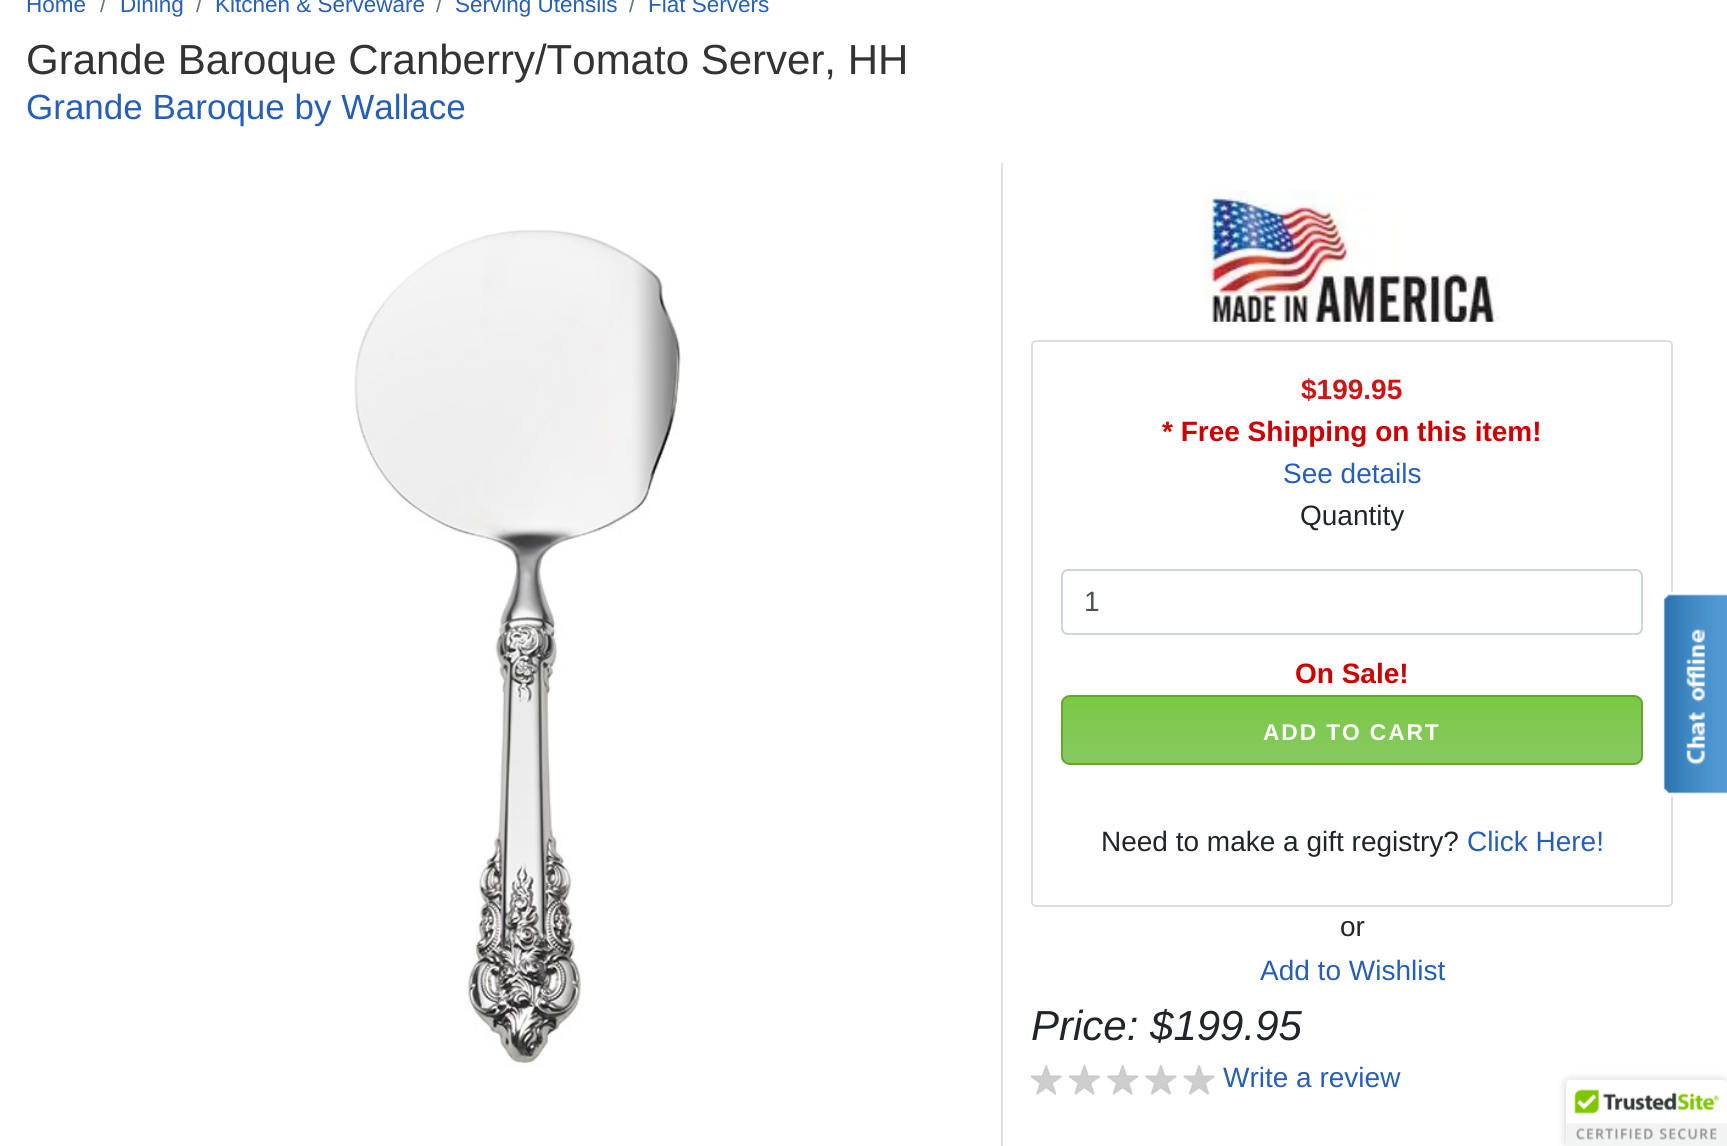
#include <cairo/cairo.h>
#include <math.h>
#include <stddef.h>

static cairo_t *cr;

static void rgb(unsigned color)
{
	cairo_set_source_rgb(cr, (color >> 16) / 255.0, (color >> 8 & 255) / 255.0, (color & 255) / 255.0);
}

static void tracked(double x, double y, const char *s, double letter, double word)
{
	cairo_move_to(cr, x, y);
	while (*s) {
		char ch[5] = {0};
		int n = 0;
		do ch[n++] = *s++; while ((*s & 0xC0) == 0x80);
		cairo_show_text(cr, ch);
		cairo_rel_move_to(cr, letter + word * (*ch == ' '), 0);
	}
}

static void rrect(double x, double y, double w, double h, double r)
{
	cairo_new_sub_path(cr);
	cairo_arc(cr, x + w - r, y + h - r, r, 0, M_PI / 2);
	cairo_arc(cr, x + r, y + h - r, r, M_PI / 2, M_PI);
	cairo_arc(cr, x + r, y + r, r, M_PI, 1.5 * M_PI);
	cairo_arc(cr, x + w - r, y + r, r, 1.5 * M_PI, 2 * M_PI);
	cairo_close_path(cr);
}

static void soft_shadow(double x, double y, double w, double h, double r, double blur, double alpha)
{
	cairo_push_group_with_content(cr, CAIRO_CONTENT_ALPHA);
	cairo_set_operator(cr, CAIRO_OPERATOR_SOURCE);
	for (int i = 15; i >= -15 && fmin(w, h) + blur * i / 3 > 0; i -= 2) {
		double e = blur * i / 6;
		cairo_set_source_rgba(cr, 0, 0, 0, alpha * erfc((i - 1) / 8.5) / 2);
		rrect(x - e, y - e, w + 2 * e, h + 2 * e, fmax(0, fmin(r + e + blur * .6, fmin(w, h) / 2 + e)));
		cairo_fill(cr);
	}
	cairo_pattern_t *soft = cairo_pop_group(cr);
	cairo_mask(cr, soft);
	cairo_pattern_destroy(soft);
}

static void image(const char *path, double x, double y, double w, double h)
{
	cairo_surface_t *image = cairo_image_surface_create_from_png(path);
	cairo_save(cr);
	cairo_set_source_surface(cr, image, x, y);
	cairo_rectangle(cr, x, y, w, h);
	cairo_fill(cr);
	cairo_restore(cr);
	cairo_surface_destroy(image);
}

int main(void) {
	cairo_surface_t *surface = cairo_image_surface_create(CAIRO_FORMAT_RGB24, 1727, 1146);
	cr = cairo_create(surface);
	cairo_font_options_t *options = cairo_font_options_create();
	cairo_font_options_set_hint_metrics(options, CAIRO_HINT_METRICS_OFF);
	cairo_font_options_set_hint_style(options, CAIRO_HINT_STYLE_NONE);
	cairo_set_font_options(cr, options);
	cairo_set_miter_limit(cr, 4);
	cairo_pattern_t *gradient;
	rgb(0xffffff);
	cairo_paint(cr);
	rgb(0xe0e0e0);
	cairo_rectangle(cr, 1001, 163, 2, 983);
	cairo_fill(cr);
	image("img/1.png", 354, 229, 327, 840);
	image("img/2.png", 1202, 190, 298, 132);
	rrect(1032, 341, 640, 565, 4);
	rgb(0xdddddd);
	cairo_stroke(cr);
	rrect(1062, 570, 580, 64, 6);
	rgb(0xced4da);
	cairo_stroke(cr);
	cairo_save(cr);
	rrect(1061, 695, 582, 70, 9);
	cairo_clip(cr);
	gradient = cairo_pattern_create_linear(1352, 697, 1352, 763);
	cairo_pattern_add_color_stop_rgba(gradient, 0, 0.478, 0.788, 0.263, 1);
	cairo_pattern_add_color_stop_rgba(gradient, 1, 0.533, 0.788, 0.384, 1);
	cairo_set_source(cr, gradient);
	cairo_pattern_destroy(gradient);
	cairo_rectangle(cr, 1061, 697, 582, 66);
	cairo_fill(cr);
	cairo_restore(cr);
	rrect(1062, 696, 580, 68, 8);
	rgb(0x65a637);
	cairo_stroke(cr);
	image("img/3.png", 1030, 1064, 185, 31);
	image("img/4.png", 1663, 591, 64, 206);
	rgb(0x000000);
	soft_shadow(1566, 1080, 161, 66, 4, 4.5, 0.2);
	rgb(0xffffff);
	cairo_new_path(cr);
	cairo_move_to(cr, 1570, 1080);
	cairo_line_to(cr, 1727, 1080);
	cairo_line_to(cr, 1727, 1146);
	cairo_line_to(cr, 1566, 1146);
	cairo_line_to(cr, 1566, 1084);
	cairo_curve_to(cr, 1566, 1082, 1568, 1080, 1570, 1080);
	cairo_close_path(cr);
	cairo_fill(cr);
	image("img/5.png", 1566, 1079, 161, 67);
	cairo_select_font_face(cr, "Liberation Sans", CAIRO_FONT_SLANT_NORMAL, CAIRO_FONT_WEIGHT_NORMAL);
	cairo_set_font_size(cr, 22.5);
	rgb(0x275eb7);
	cairo_move_to(cr, 26, 12);
	cairo_show_text(cr, "Home");
	rgb(0x6c757d);
	cairo_move_to(cr, 100, 12);
	cairo_show_text(cr, "/");
	rgb(0x275eb7);
	cairo_move_to(cr, 120, 12);
	cairo_show_text(cr, "Dining");
	rgb(0x6c757d);
	cairo_move_to(cr, 196, 12);
	cairo_show_text(cr, "/");
	rgb(0x275eb7);
	cairo_move_to(cr, 215, 12);
	cairo_show_text(cr, "Kitchen & Serveware");
	rgb(0x6c757d);
	cairo_move_to(cr, 436, 12);
	cairo_show_text(cr, "/");
	rgb(0x275eb7);
	cairo_move_to(cr, 455, 12);
	cairo_show_text(cr, "Serving Utensils");
	rgb(0x6c757d);
	cairo_move_to(cr, 629, 12);
	cairo_show_text(cr, "/");
	rgb(0x275eb7);
	cairo_move_to(cr, 648, 12);
	cairo_show_text(cr, "Flat Servers");
	cairo_set_font_size(cr, 42);
	rgb(0x333333);
	cairo_move_to(cr, 26, 74);
	cairo_show_text(cr, "Grande Baroque Cranberry/Tomato Server, HH");
	cairo_set_font_size(cr, 35);
	rgb(0x275eb7);
	cairo_move_to(cr, 26, 119);
	cairo_show_text(cr, "Grande Baroque by Wallace");
	cairo_select_font_face(cr, "Liberation Sans", CAIRO_FONT_SLANT_NORMAL, CAIRO_FONT_WEIGHT_BOLD);
	cairo_set_font_size(cr, 28);
	rgb(0xca1816);
	cairo_move_to(cr, 1301, 399);
	cairo_show_text(cr, "$199.95");
	rgb(0xcc0000);
	cairo_move_to(cr, 1162, 441);
	cairo_show_text(cr, "* Free Shipping on this item!");
	cairo_select_font_face(cr, "Liberation Sans", CAIRO_FONT_SLANT_NORMAL, CAIRO_FONT_WEIGHT_NORMAL);
	rgb(0x275eb7);
	cairo_move_to(cr, 1283, 483);
	cairo_show_text(cr, "See details");
	rgb(0x212529);
	cairo_move_to(cr, 1300, 525);
	cairo_show_text(cr, "Quantity");
	rgb(0x495057);
	cairo_move_to(cr, 1084, 611);
	cairo_show_text(cr, "1");
	cairo_select_font_face(cr, "Liberation Sans", CAIRO_FONT_SLANT_NORMAL, CAIRO_FONT_WEIGHT_BOLD);
	rgb(0xcc0000);
	cairo_move_to(cr, 1295, 683);
	cairo_show_text(cr, "On Sale!");
	cairo_set_font_size(cr, 22.75);
	rgb(0xffffff);
	tracked(1263, 740, "ADD TO CART", 1.9, 0);
	cairo_select_font_face(cr, "Liberation Sans", CAIRO_FONT_SLANT_NORMAL, CAIRO_FONT_WEIGHT_NORMAL);
	cairo_set_font_size(cr, 28);
	rgb(0x212529);
	cairo_move_to(cr, 1101, 851);
	cairo_show_text(cr, "Need to make a gift registry?");
	rgb(0x275eb7);
	cairo_move_to(cr, 1467, 851);
	cairo_show_text(cr, "Click Here!");
	rgb(0x212529);
	cairo_move_to(cr, 1340, 936);
	cairo_show_text(cr, "or");
	rgb(0x275eb7);
	cairo_move_to(cr, 1260, 980);
	cairo_show_text(cr, "Add to Wishlist");
	cairo_select_font_face(cr, "Liberation Sans", CAIRO_FONT_SLANT_ITALIC, CAIRO_FONT_WEIGHT_NORMAL);
	cairo_set_font_size(cr, 42);
	rgb(0x212529);
	cairo_move_to(cr, 1031, 1040);
	cairo_show_text(cr, "Price: $199.95");
	cairo_select_font_face(cr, "Liberation Sans", CAIRO_FONT_SLANT_NORMAL, CAIRO_FONT_WEIGHT_NORMAL);
	cairo_set_font_size(cr, 28);
	rgb(0x275eb7);
	cairo_move_to(cr, 1223, 1087);
	cairo_show_text(cr, "Write a review");
	cairo_surface_write_to_png(surface, "page.png");
	cairo_font_options_destroy(options);
	cairo_destroy(cr);
	cairo_surface_destroy(surface);
	return 0;
}
